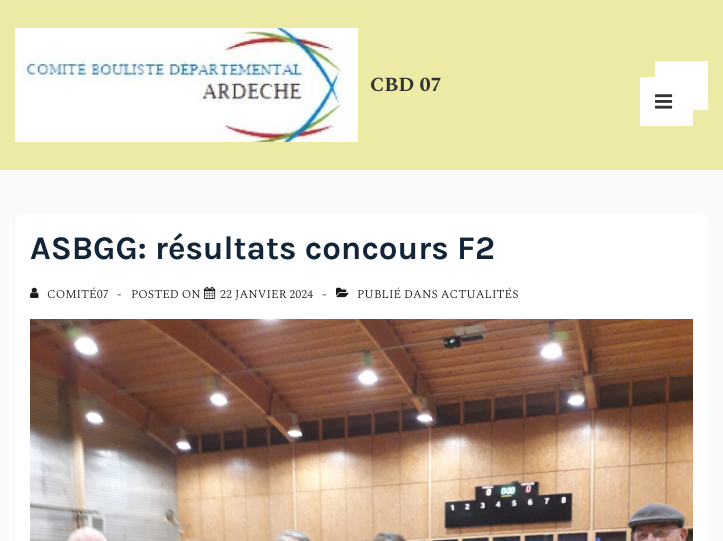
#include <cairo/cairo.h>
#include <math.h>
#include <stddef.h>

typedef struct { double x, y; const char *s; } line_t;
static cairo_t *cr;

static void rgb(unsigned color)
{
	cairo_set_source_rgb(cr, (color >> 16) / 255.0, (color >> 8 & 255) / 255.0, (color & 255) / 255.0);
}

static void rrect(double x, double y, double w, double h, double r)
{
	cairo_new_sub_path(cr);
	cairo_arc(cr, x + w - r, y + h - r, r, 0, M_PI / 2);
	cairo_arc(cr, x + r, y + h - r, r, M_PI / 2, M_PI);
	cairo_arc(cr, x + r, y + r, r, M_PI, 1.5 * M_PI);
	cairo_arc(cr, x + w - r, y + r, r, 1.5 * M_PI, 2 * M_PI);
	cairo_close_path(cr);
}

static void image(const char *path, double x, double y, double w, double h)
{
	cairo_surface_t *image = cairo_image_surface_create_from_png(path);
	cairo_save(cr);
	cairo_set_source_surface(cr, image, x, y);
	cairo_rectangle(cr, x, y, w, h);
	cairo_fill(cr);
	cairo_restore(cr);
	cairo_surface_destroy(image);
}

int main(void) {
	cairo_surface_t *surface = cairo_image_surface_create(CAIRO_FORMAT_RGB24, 723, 541);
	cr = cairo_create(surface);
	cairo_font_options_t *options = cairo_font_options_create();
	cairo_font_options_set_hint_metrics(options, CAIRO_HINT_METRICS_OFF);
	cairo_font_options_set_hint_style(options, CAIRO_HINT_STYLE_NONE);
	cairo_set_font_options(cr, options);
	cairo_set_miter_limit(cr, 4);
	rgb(0xf9fafc);
	cairo_paint(cr);
	rgb(0xeceaa4);
	cairo_rectangle(cr, 0, 0, 723, 170);
	cairo_fill(cr);
	image("img/1.png", 15, 28, 343, 114);
	rgb(0xffffff);
	cairo_rectangle(cr, 655, 61, 53, 49);
	cairo_fill(cr);
	cairo_rectangle(cr, 640, 77, 53, 49);
	cairo_fill(cr);
	image("img/2.png", 655, 94, 18, 15);
	rrect(15, 213, 693, 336, 8);
	cairo_fill(cr);
	image("img/3.png", 30, 287, 9, 11);
	image("img/4.png", 204, 286, 12, 13);
	image("img/5.png", 336, 287, 13, 11);
	image("img/6.png", 30, 319, 663, 222);
	cairo_select_font_face(cr, "Spectral", CAIRO_FONT_SLANT_NORMAL, CAIRO_FONT_WEIGHT_BOLD);
	cairo_set_font_size(cr, 20);
	rgb(0x333333);
	cairo_move_to(cr, 370, 91);
	cairo_show_text(cr, "CBD 07");
	cairo_select_font_face(cr, "Karla", CAIRO_FONT_SLANT_NORMAL, CAIRO_FONT_WEIGHT_BOLD);
	cairo_set_font_size(cr, 33);
	rgb(0x122538);
	cairo_move_to(cr, 30, 259);
	cairo_show_text(cr, "ASBGG: résultats concours F2");
	cairo_select_font_face(cr, "Spectral Light", CAIRO_FONT_SLANT_NORMAL, CAIRO_FONT_WEIGHT_NORMAL);
	cairo_set_font_size(cr, 12);
	rgb(0x1b1a1b);
	{
		static const line_t items[] = {
			{47, 298, "COMITÉ07"},
			{117, 298, "-"},
			{131, 298, "POSTED ON"},
			{220, 298, "22 JANVIER 2024"},
			{322, 298, "-"},
			{357, 298, "PUBLIÉ DANS ACTUALITÉS"},
		};
		for (size_t i = 0; i < sizeof items / sizeof *items; i++) {
			cairo_move_to(cr, items[i].x, items[i].y);
			cairo_show_text(cr, items[i].s);
		}
	}
	cairo_surface_write_to_png(surface, "page.png");
	cairo_font_options_destroy(options);
	cairo_destroy(cr);
	cairo_surface_destroy(surface);
	return 0;
}
